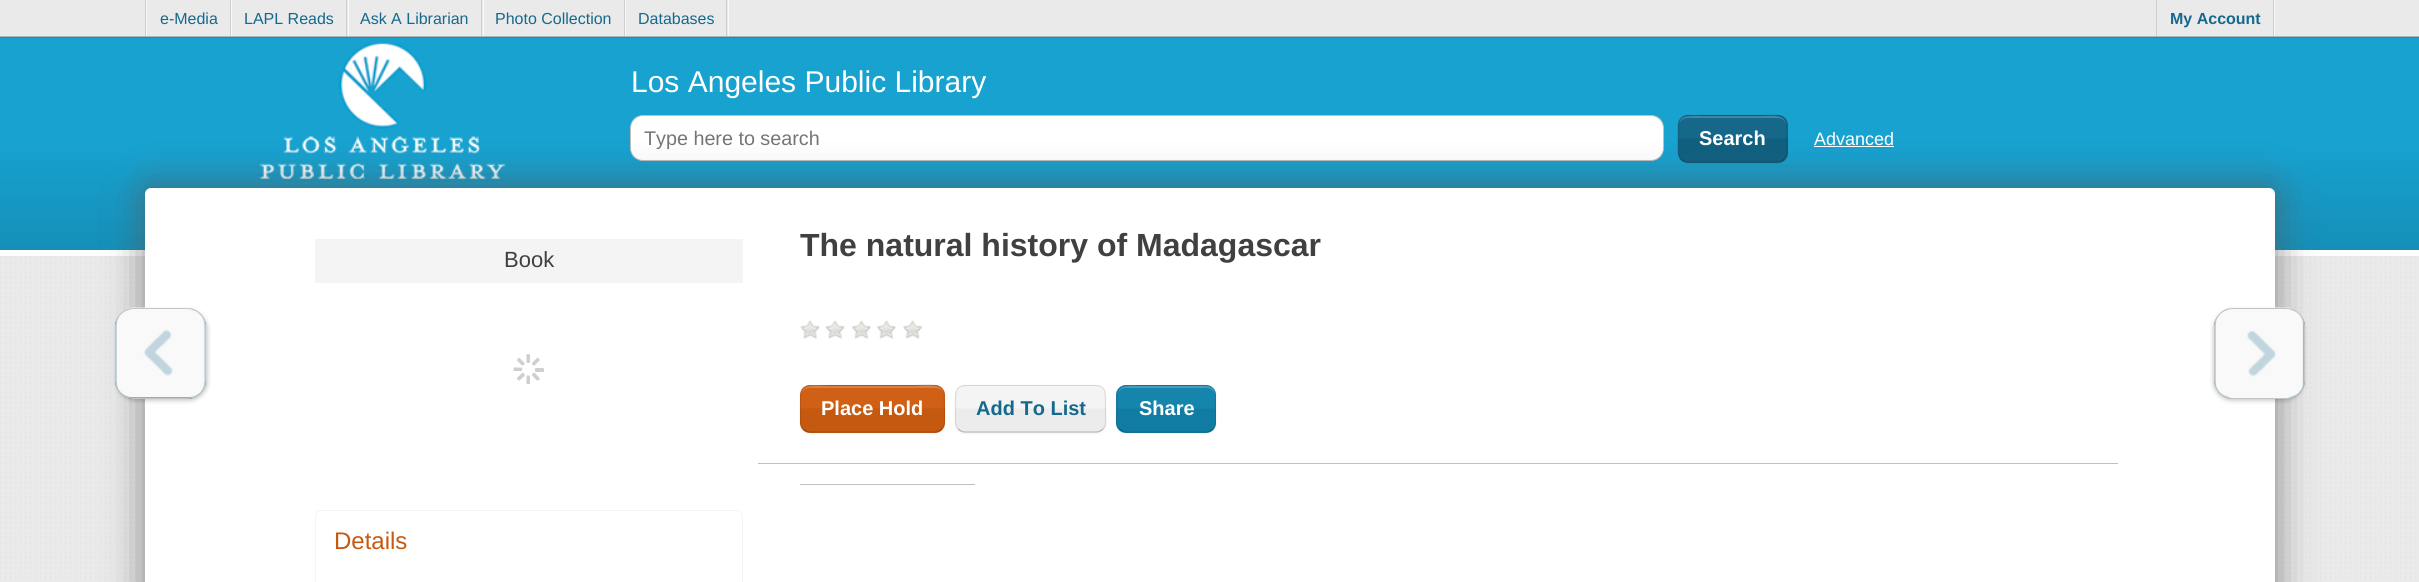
#include <cairo/cairo.h>
#include <math.h>
#include <stddef.h>

typedef struct { double x, y; const char *s; } line_t;
typedef struct { double x, y, w, h; unsigned color; } box_t;
static cairo_t *cr;

static void rgb(unsigned color)
{
	cairo_set_source_rgb(cr, (color >> 16) / 255.0, (color >> 8 & 255) / 255.0, (color & 255) / 255.0);
}

static void rrect(double x, double y, double w, double h, double r)
{
	cairo_new_sub_path(cr);
	cairo_arc(cr, x + w - r, y + h - r, r, 0, M_PI / 2);
	cairo_arc(cr, x + r, y + h - r, r, M_PI / 2, M_PI);
	cairo_arc(cr, x + r, y + r, r, M_PI, 1.5 * M_PI);
	cairo_arc(cr, x + w - r, y + r, r, 1.5 * M_PI, 2 * M_PI);
	cairo_close_path(cr);
}

static void soft_shadow(double x, double y, double w, double h, double r, double blur, double alpha)
{
	cairo_push_group_with_content(cr, CAIRO_CONTENT_ALPHA);
	cairo_set_operator(cr, CAIRO_OPERATOR_SOURCE);
	for (int i = 15; i >= -15 && fmin(w, h) + blur * i / 3 > 0; i -= 2) {
		double e = blur * i / 6;
		cairo_set_source_rgba(cr, 0, 0, 0, alpha * erfc((i - 1) / 8.5) / 2);
		rrect(x - e, y - e, w + 2 * e, h + 2 * e, fmax(0, fmin(r + e + blur * .6, fmin(w, h) / 2 + e)));
		cairo_fill(cr);
	}
	cairo_pattern_t *soft = cairo_pop_group(cr);
	cairo_mask(cr, soft);
	cairo_pattern_destroy(soft);
}

static void image(const char *path, double x, double y, double w, double h)
{
	cairo_surface_t *image = cairo_image_surface_create_from_png(path);
	cairo_save(cr);
	cairo_set_source_surface(cr, image, x, y);
	cairo_rectangle(cr, x, y, w, h);
	cairo_fill(cr);
	cairo_restore(cr);
	cairo_surface_destroy(image);
}

int main(void) {
	cairo_surface_t *surface = cairo_image_surface_create(CAIRO_FORMAT_RGB24, 2419, 582);
	cr = cairo_create(surface);
	cairo_font_options_t *options = cairo_font_options_create();
	cairo_font_options_set_hint_metrics(options, CAIRO_HINT_METRICS_OFF);
	cairo_font_options_set_hint_style(options, CAIRO_HINT_STYLE_NONE);
	cairo_set_font_options(cr, options);
	cairo_set_miter_limit(cr, 4);
	cairo_pattern_t *gradient;
	rgb(0xeaeaea);
	cairo_paint(cr);
	{
		static const box_t items[] = {
			{145, 0, 1, 36, 0xcecece},
			{231, 0, 1, 36, 0xf8f8f8},
			{146, 0, 1, 36, 0xf8f8f8},
			{230, 0, 1, 36, 0xcecece},
			{348, 0, 1, 36, 0xf8f8f8},
			{346, 0, 1, 36, 0xcecece},
			{483, 0, 1, 36, 0xf8f8f8},
			{481, 0, 1, 36, 0xcecece},
			{625, 0, 1, 36, 0xf8f8f8},
			{624, 0, 1, 36, 0xcecece},
			{728, 0, 1, 36, 0xf8f8f8},
			{726, 0, 1, 36, 0xcecece},
			{2156, 0, 1, 36, 0xcecece},
			{2274, 0, 1, 36, 0xf8f8f8},
			{2273, 0, 1, 36, 0xcecece},
			{0, 37, 2419, 1, 0x158fb8},
		};
		for (size_t i = 0; i < sizeof items / sizeof *items; i++) {
			rgb(items[i].color);
			cairo_rectangle(cr, items[i].x, items[i].y, items[i].w, items[i].h);
			cairo_fill(cr);
		}
	}
	gradient = cairo_pattern_create_linear(1210, 37, 1210, 250);
	cairo_pattern_add_color_stop_rgba(gradient, 0.5, 0.09, 0.635, 0.816, 1);
	cairo_pattern_add_color_stop_rgba(gradient, 1, 0.082, 0.561, 0.722, 1);
	cairo_set_source(cr, gradient);
	cairo_pattern_destroy(gradient);
	cairo_rectangle(cr, 0, 38, 2419, 212);
	cairo_fill(cr);
	rgb(0xb4b4b4);
	cairo_rectangle(cr, 0, 36, 2419, 1);
	cairo_fill(cr);
	rgb(0xffffff);
	cairo_rectangle(cr, 0, 250, 2419, 6);
	cairo_fill(cr);
	image("img/1.png", 259, 43, 247, 136);
	rrect(630.5, 115.5, 1033, 45, 12.5);
	cairo_fill_preserve(cr);
	rgb(0xbfbfbf);
	cairo_set_line_width(cr, 1);
	cairo_stroke(cr);
	rgb(0x000000);
	soft_shadow(1678, 116, 110, 48, 10, 1, 0.05);
	cairo_save(cr);
	rrect(1678, 115, 110, 48, 10);
	cairo_clip(cr);
	gradient = cairo_pattern_create_linear(1733, 71, 1733, 116);
	cairo_pattern_add_color_stop_rgba(gradient, 0.48, 0.082, 0.408, 0.541, 1);
	cairo_pattern_add_color_stop_rgba(gradient, 0.52, 0.063, 0.373, 0.502, 1);
	cairo_set_source(cr, gradient);
	cairo_pattern_destroy(gradient);
	cairo_rectangle(cr, 1678, 115, 110, 1);
	cairo_fill(cr);
	gradient = cairo_pattern_create_linear(1733, 116, 1733, 161);
	cairo_pattern_add_color_stop_rgba(gradient, 0.48, 0.082, 0.408, 0.541, 1);
	cairo_pattern_add_color_stop_rgba(gradient, 0.52, 0.063, 0.373, 0.502, 1);
	cairo_set_source(cr, gradient);
	cairo_pattern_destroy(gradient);
	cairo_rectangle(cr, 1678, 116, 110, 45);
	cairo_fill(cr);
	gradient = cairo_pattern_create_linear(1733, 161, 1733, 206);
	cairo_pattern_add_color_stop_rgba(gradient, 0.48, 0.082, 0.408, 0.541, 1);
	cairo_pattern_add_color_stop_rgba(gradient, 0.52, 0.063, 0.373, 0.502, 1);
	cairo_set_source(cr, gradient);
	cairo_pattern_destroy(gradient);
	cairo_rectangle(cr, 1678, 161, 110, 2);
	cairo_fill(cr);
	cairo_restore(cr);
	rgb(0x4486a1);
	cairo_new_path(cr);
	cairo_move_to(cr, 1688, 118);
	cairo_line_to(cr, 1778, 118);
	cairo_curve_to(cr, 1782, 118, 1786, 121, 1786, 126);
	cairo_curve_to(cr, 1786, 113, 1771, 116, 1762, 116);
	cairo_line_to(cr, 1703, 116);
	cairo_curve_to(cr, 1694, 116, 1679, 113, 1679, 126);
	cairo_curve_to(cr, 1679, 121, 1683, 118, 1688, 118);
	cairo_close_path(cr);
	cairo_fill(cr);
	cairo_new_path(cr);
	cairo_move_to(cr, 1784, 159);
	cairo_curve_to(cr, 1782.5, 161, 1780, 162, 1777.5, 162);
	cairo_line_to(cr, 1687.5, 162);
	cairo_curve_to(cr, 1685, 162, 1682.5, 161, 1681, 159);
	cairo_set_source_rgba(cr, 0, 0, 0, 0.25);
	cairo_set_line_width(cr, 1.2);
	cairo_stroke(cr);
	cairo_new_path(cr);
	cairo_move_to(cr, 1681, 159);
	cairo_curve_to(cr, 1676.5, 154.5, 1678, 144.5, 1678, 139);
	cairo_curve_to(cr, 1678, 114.5, 1677.5, 115.5, 1702.5, 115.5);
	cairo_line_to(cr, 1762.5, 115.5);
	cairo_curve_to(cr, 1769.5, 115.5, 1784.5, 112.5, 1786.5, 123);
	cairo_line_to(cr, 1787, 148);
	cairo_curve_to(cr, 1787, 152, 1787.5, 156, 1784, 159);
	cairo_set_source_rgba(cr, 0, 0, 0, 0.1);
	cairo_stroke(cr);
	rgb(0xffffff);
	cairo_rectangle(cr, 1814, 146, 80, 1);
	cairo_fill(cr);
	image("img/2.png", 0, 256, 2416, 323);
	rgb(0x555555);
	soft_shadow(145, 188, 2130, 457, 6, 19, 0.7);
	rgb(0xffffff);
	rrect(145, 188, 2130, 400, 6);
	cairo_fill(cr);
	rgb(0x000000);
	soft_shadow(116, 310, 92, 91, 19, 2, 0.2);
	rgb(0x15698c);
	rrect(115, 308, 91, 91, 19);
	cairo_fill(cr);
	image("img/3.png", 116, 307, 90, 91);
	rrect(115.5, 308.5, 90, 90, 18.5);
	rgb(0xc4c4c4);
	cairo_set_line_width(cr, 1);
	cairo_stroke(cr);
	rgb(0xf4f4f4);
	cairo_rectangle(cr, 315, 239, 428, 44);
	cairo_fill(cr);
	rgb(0xcfcfcf);
	rrect(535, 368, 9, 4, 1);
	cairo_fill(cr);
	cairo_new_path(cr);
	cairo_move_to(cr, 535, 373);
	cairo_line_to(cr, 539.5, 378);
	cairo_curve_to(cr, 540, 378.5, 539.5, 379, 539.5, 379.5);
	cairo_curve_to(cr, 537, 382, 536.5, 380, 534.5, 378);
	cairo_line_to(cr, 532, 375.5);
	cairo_curve_to(cr, 531.5, 374, 533.5, 372, 535, 373);
	cairo_close_path(cr);
	cairo_move_to(cr, 530, 376.5);
	cairo_line_to(cr, 530, 383.5);
	cairo_curve_to(cr, 530, 384, 529.5, 384, 529, 384);
	cairo_curve_to(cr, 525.5, 384.5, 526.5, 383, 526.5, 380);
	cairo_line_to(cr, 526.5, 376);
	cairo_curve_to(cr, 527, 375, 530, 375, 530, 376.5);
	cairo_close_path(cr);
	cairo_move_to(cr, 524.5, 376);
	cairo_line_to(cr, 519.5, 380.5);
	cairo_curve_to(cr, 519, 380.5, 518.5, 380.5, 518, 380);
	cairo_curve_to(cr, 515.5, 378, 517.5, 377.5, 519.5, 375.5);
	cairo_line_to(cr, 522, 373);
	cairo_curve_to(cr, 523.5, 372.5, 525.5, 374.5, 524.5, 376);
	cairo_close_path(cr);
	cairo_move_to(cr, 521, 371);
	cairo_line_to(cr, 514, 371);
	cairo_curve_to(cr, 513.5, 371, 513.5, 370.5, 513.5, 370);
	cairo_curve_to(cr, 513, 366.5, 514.5, 367.5, 517.5, 367.5);
	cairo_line_to(cr, 521.5, 367.5);
	cairo_curve_to(cr, 522.5, 368, 522.5, 371, 521, 371);
	cairo_close_path(cr);
	cairo_move_to(cr, 521.5, 365);
	cairo_line_to(cr, 517, 360.5);
	cairo_curve_to(cr, 517, 360, 517, 359.5, 517.5, 359);
	cairo_curve_to(cr, 519.5, 356.5, 520, 358.5, 522, 360.5);
	cairo_line_to(cr, 524.5, 363);
	cairo_curve_to(cr, 525, 364.5, 523, 366.5, 521.5, 365);
	cairo_close_path(cr);
	cairo_fill(cr);
	cairo_new_path(cr);
	cairo_move_to(cr, 526.5, 361.5);
	cairo_line_to(cr, 526.5, 355);
	cairo_curve_to(cr, 526.5, 354.5, 527, 354, 527.5, 354);
	cairo_curve_to(cr, 531, 354, 530, 355.5, 530, 358.5);
	cairo_line_to(cr, 530, 362);
	cairo_curve_to(cr, 529.5, 363.5, 526.5, 363.5, 526.5, 361.5);
	cairo_close_path(cr);
	cairo_move_to(cr, 532.5, 362.5);
	cairo_line_to(cr, 537, 358);
	cairo_curve_to(cr, 537.5, 357.5, 538, 358, 538.5, 358);
	cairo_curve_to(cr, 541, 360.5, 539, 361, 537, 363);
	cairo_line_to(cr, 534.5, 365.5);
	cairo_curve_to(cr, 533, 366, 531, 364, 532.5, 362.5);
	cairo_close_path(cr);
	cairo_fill(cr);
	rrect(315.5, 510.5, 427, 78, 5.5);
	rgb(0xf4f4f4);
	cairo_stroke(cr);
	rgb(0xbfbfbf);
	cairo_rectangle(cr, 758, 463, 1360, 1);
	cairo_fill(cr);
	image("img/4.png", 800, 320, 20, 19);
	image("img/4.png", 825, 320, 20, 19);
	image("img/5.png", 851, 320, 20, 19);
	image("img/5.png", 876, 320, 20, 19);
	image("img/6.png", 903, 320, 20, 19);
	rgb(0x000000);
	soft_shadow(800, 386, 145, 48, 10, 1, 0.05);
	cairo_save(cr);
	rrect(800, 385, 145, 48, 10);
	cairo_clip(cr);
	gradient = cairo_pattern_create_linear(873, 341, 873, 386);
	cairo_pattern_add_color_stop_rgba(gradient, 0.48, 0.812, 0.376, 0.082, 1);
	cairo_pattern_add_color_stop_rgba(gradient, 0.52, 0.773, 0.349, 0.059, 1);
	cairo_set_source(cr, gradient);
	cairo_pattern_destroy(gradient);
	cairo_rectangle(cr, 800, 385, 145, 1);
	cairo_fill(cr);
	gradient = cairo_pattern_create_linear(873, 386, 873, 431);
	cairo_pattern_add_color_stop_rgba(gradient, 0.48, 0.812, 0.376, 0.082, 1);
	cairo_pattern_add_color_stop_rgba(gradient, 0.52, 0.773, 0.349, 0.059, 1);
	cairo_set_source(cr, gradient);
	cairo_pattern_destroy(gradient);
	cairo_rectangle(cr, 800, 386, 145, 45);
	cairo_fill(cr);
	gradient = cairo_pattern_create_linear(873, 431, 873, 476);
	cairo_pattern_add_color_stop_rgba(gradient, 0.48, 0.812, 0.376, 0.082, 1);
	cairo_pattern_add_color_stop_rgba(gradient, 0.52, 0.773, 0.349, 0.059, 1);
	cairo_set_source(cr, gradient);
	cairo_pattern_destroy(gradient);
	cairo_rectangle(cr, 800, 431, 145, 2);
	cairo_fill(cr);
	cairo_restore(cr);
	cairo_set_source_rgba(cr, 1, 1, 1, 0.2);
	cairo_new_path(cr);
	cairo_move_to(cr, 810, 388);
	cairo_line_to(cr, 935, 388);
	cairo_curve_to(cr, 940, 388, 944, 391, 944, 396);
	cairo_curve_to(cr, 944, 381, 923, 386, 914, 386);
	cairo_line_to(cr, 831, 386);
	cairo_curve_to(cr, 822, 386, 801, 381, 801, 396);
	cairo_curve_to(cr, 801, 391, 805, 388, 810, 388);
	cairo_close_path(cr);
	cairo_fill(cr);
	cairo_new_path(cr);
	cairo_move_to(cr, 941.5, 429);
	cairo_curve_to(cr, 940, 431, 937.5, 432, 935, 432);
	cairo_line_to(cr, 810, 432);
	cairo_curve_to(cr, 807.5, 432, 805, 431, 803.5, 429);
	cairo_set_source_rgba(cr, 0, 0, 0, 0.25);
	cairo_set_line_width(cr, 1.2);
	cairo_stroke(cr);
	cairo_new_path(cr);
	cairo_move_to(cr, 803.5, 429);
	cairo_curve_to(cr, 799.5, 425, 800.5, 418.5, 800.5, 413.5);
	cairo_curve_to(cr, 800.5, 383, 798.5, 385.5, 831, 385.5);
	cairo_line_to(cr, 914, 385.5);
	cairo_curve_to(cr, 920, 385.5, 941.5, 381, 944, 393);
	cairo_line_to(cr, 944.5, 409);
	cairo_curve_to(cr, 944.5, 414.5, 946, 424.5, 941.5, 429);
	cairo_set_source_rgba(cr, 0, 0, 0, 0.1);
	cairo_stroke(cr);
	rgb(0x000000);
	soft_shadow(955, 386, 151, 48, 10, 1, 0.05);
	cairo_save(cr);
	rrect(955, 385, 151, 48, 10);
	cairo_clip(cr);
	gradient = cairo_pattern_create_linear(1031, 341, 1031, 386);
	cairo_pattern_add_color_stop_rgba(gradient, 0.48, 0.957, 0.957, 0.957, 1);
	cairo_pattern_add_color_stop_rgba(gradient, 0.52, 0.929, 0.925, 0.925, 1);
	cairo_set_source(cr, gradient);
	cairo_pattern_destroy(gradient);
	cairo_rectangle(cr, 955, 385, 151, 1);
	cairo_fill(cr);
	gradient = cairo_pattern_create_linear(1031, 386, 1031, 431);
	cairo_pattern_add_color_stop_rgba(gradient, 0.48, 0.957, 0.957, 0.957, 1);
	cairo_pattern_add_color_stop_rgba(gradient, 0.52, 0.929, 0.925, 0.925, 1);
	cairo_set_source(cr, gradient);
	cairo_pattern_destroy(gradient);
	cairo_rectangle(cr, 955, 386, 151, 45);
	cairo_fill(cr);
	cairo_restore(cr);
	cairo_set_source_rgba(cr, 1, 1, 1, 0.2);
	cairo_new_path(cr);
	cairo_move_to(cr, 965, 388);
	cairo_line_to(cr, 1096, 388);
	cairo_curve_to(cr, 1101, 388, 1105, 391, 1105, 396);
	cairo_curve_to(cr, 1105, 381, 1083, 386, 1074, 386);
	cairo_line_to(cr, 987, 386);
	cairo_curve_to(cr, 978, 386, 956, 381, 956, 396);
	cairo_curve_to(cr, 956, 391, 960, 388, 965, 388);
	cairo_close_path(cr);
	cairo_fill(cr);
	cairo_new_path(cr);
	cairo_move_to(cr, 1103, 429);
	cairo_curve_to(cr, 1101, 431, 1098.5, 432, 1096, 432);
	cairo_line_to(cr, 965, 432);
	cairo_curve_to(cr, 962.5, 432, 960, 431, 958.5, 429);
	cairo_set_source_rgba(cr, 0, 0, 0, 0.25);
	cairo_stroke(cr);
	cairo_new_path(cr);
	cairo_move_to(cr, 958.5, 429);
	cairo_curve_to(cr, 954.5, 425, 955.5, 418.5, 955.5, 413.5);
	cairo_curve_to(cr, 955.5, 382, 953.5, 385.5, 987, 385.5);
	cairo_line_to(cr, 1074.5, 385.5);
	cairo_curve_to(cr, 1108, 385.5, 1105.5, 382, 1105.5, 413.5);
	cairo_curve_to(cr, 1105.5, 418.5, 1107, 425, 1103, 429);
	cairo_set_source_rgba(cr, 0, 0, 0, 0.1);
	cairo_stroke(cr);
	rgb(0x000000);
	soft_shadow(1116, 386, 100, 48, 10, 1, 0.05);
	cairo_save(cr);
	rrect(1116, 385, 100, 48, 10);
	cairo_clip(cr);
	gradient = cairo_pattern_create_linear(1166, 341, 1166, 386);
	cairo_pattern_add_color_stop_rgba(gradient, 0.48, 0.086, 0.522, 0.678, 1);
	cairo_pattern_add_color_stop_rgba(gradient, 0.52, 0.067, 0.486, 0.639, 1);
	cairo_set_source(cr, gradient);
	cairo_pattern_destroy(gradient);
	cairo_rectangle(cr, 1116, 385, 100, 1);
	cairo_fill(cr);
	gradient = cairo_pattern_create_linear(1166, 386, 1166, 431);
	cairo_pattern_add_color_stop_rgba(gradient, 0.48, 0.086, 0.522, 0.678, 1);
	cairo_pattern_add_color_stop_rgba(gradient, 0.52, 0.067, 0.486, 0.639, 1);
	cairo_set_source(cr, gradient);
	cairo_pattern_destroy(gradient);
	cairo_rectangle(cr, 1116, 386, 100, 45);
	cairo_fill(cr);
	gradient = cairo_pattern_create_linear(1166, 431, 1166, 476);
	cairo_pattern_add_color_stop_rgba(gradient, 0.48, 0.086, 0.522, 0.678, 1);
	cairo_pattern_add_color_stop_rgba(gradient, 0.52, 0.067, 0.486, 0.639, 1);
	cairo_set_source(cr, gradient);
	cairo_pattern_destroy(gradient);
	cairo_rectangle(cr, 1116, 431, 100, 2);
	cairo_fill(cr);
	cairo_restore(cr);
	rgb(0x459dbd);
	cairo_new_path(cr);
	cairo_move_to(cr, 1126, 388);
	cairo_line_to(cr, 1206, 388);
	cairo_curve_to(cr, 1211, 388, 1215, 391, 1215, 396);
	cairo_curve_to(cr, 1215, 383, 1202, 386, 1193, 386);
	cairo_line_to(cr, 1140, 386);
	cairo_curve_to(cr, 1131, 386, 1118, 383, 1118, 396);
	cairo_curve_to(cr, 1118, 391, 1121, 388, 1126, 388);
	cairo_close_path(cr);
	cairo_fill(cr);
	cairo_new_path(cr);
	cairo_move_to(cr, 1213, 429);
	cairo_curve_to(cr, 1211, 431, 1208.5, 432, 1206, 432);
	cairo_line_to(cr, 1126, 432);
	cairo_curve_to(cr, 1124, 432, 1121.5, 431, 1119.5, 429);
	cairo_set_source_rgba(cr, 0, 0, 0, 0.25);
	cairo_stroke(cr);
	cairo_new_path(cr);
	cairo_move_to(cr, 1119.5, 429);
	cairo_curve_to(cr, 1115, 424.5, 1117, 414.5, 1117, 409);
	cairo_curve_to(cr, 1117, 385.5, 1115.5, 385.5, 1139.5, 385.5);
	cairo_line_to(cr, 1193, 385.5);
	cairo_curve_to(cr, 1200, 385.5, 1213.5, 383, 1215.5, 393);
	cairo_line_to(cr, 1215.5, 418);
	cairo_curve_to(cr, 1215.5, 422, 1216, 426, 1213, 429);
	cairo_set_source_rgba(cr, 0, 0, 0, 0.1);
	cairo_stroke(cr);
	rgb(0xbfbfbf);
	cairo_rectangle(cr, 800, 484, 175, 1);
	cairo_fill(cr);
	rgb(0x000000);
	soft_shadow(2213, 310, 91, 91, 19, 2, 0.2);
	rgb(0x15698c);
	rrect(2214, 308, 91, 91, 19);
	cairo_fill(cr);
	image("img/7.png", 2214, 307, 91, 92);
	rrect(2214.5, 308.5, 90, 90, 18.5);
	rgb(0xc4c4c4);
	cairo_set_line_width(cr, 1);
	cairo_stroke(cr);
	cairo_select_font_face(cr, "Liberation Sans", CAIRO_FONT_SLANT_NORMAL, CAIRO_FONT_WEIGHT_NORMAL);
	cairo_set_font_size(cr, 16);
	rgb(0x15698c);
	{
		static const line_t items[] = {
			{160, 24, "e-Media"},
			{244, 24, "LAPL Reads"},
			{360, 24, "Ask A Librarian"},
			{495, 24, "Photo Collection"},
			{638, 24, "Databases"},
		};
		for (size_t i = 0; i < sizeof items / sizeof *items; i++) {
			cairo_move_to(cr, items[i].x, items[i].y);
			cairo_show_text(cr, items[i].s);
		}
	}
	cairo_select_font_face(cr, "Liberation Sans", CAIRO_FONT_SLANT_NORMAL, CAIRO_FONT_WEIGHT_BOLD);
	cairo_move_to(cr, 2170, 24);
	cairo_show_text(cr, "My Account");
	cairo_select_font_face(cr, "Liberation Sans", CAIRO_FONT_SLANT_NORMAL, CAIRO_FONT_WEIGHT_NORMAL);
	cairo_set_font_size(cr, 30);
	rgb(0xffffff);
	cairo_move_to(cr, 631, 92);
	cairo_show_text(cr, "Los Angeles Public Library");
	cairo_set_font_size(cr, 19.75);
	rgb(0x757575);
	cairo_move_to(cr, 644, 145);
	cairo_show_text(cr, "Type here to search");
	cairo_select_font_face(cr, "Liberation Sans", CAIRO_FONT_SLANT_NORMAL, CAIRO_FONT_WEIGHT_BOLD);
	cairo_set_font_size(cr, 20);
	rgb(0xffffff);
	cairo_move_to(cr, 1699, 145);
	cairo_show_text(cr, "Search");
	cairo_select_font_face(cr, "Liberation Sans", CAIRO_FONT_SLANT_NORMAL, CAIRO_FONT_WEIGHT_NORMAL);
	cairo_set_font_size(cr, 18);
	cairo_move_to(cr, 1814, 145);
	cairo_show_text(cr, "Advanced");
	cairo_set_font_size(cr, 22);
	rgb(0x404040);
	cairo_move_to(cr, 504, 267);
	cairo_show_text(cr, "Book");
	cairo_set_font_size(cr, 24);
	rgb(0xc65910);
	cairo_move_to(cr, 334, 549);
	cairo_show_text(cr, "Details");
	cairo_select_font_face(cr, "Liberation Sans", CAIRO_FONT_SLANT_NORMAL, CAIRO_FONT_WEIGHT_BOLD);
	cairo_set_font_size(cr, 32);
	rgb(0x404040);
	cairo_move_to(cr, 800, 256);
	cairo_show_text(cr, "The natural history of Madagascar");
	cairo_set_font_size(cr, 20);
	rgb(0xffffff);
	cairo_move_to(cr, 821, 415);
	cairo_show_text(cr, "Place Hold");
	rgb(0x15698c);
	cairo_move_to(cr, 976, 415);
	cairo_show_text(cr, "Add To List");
	rgb(0xffffff);
	cairo_move_to(cr, 1139, 415);
	cairo_show_text(cr, "Share");
	cairo_surface_write_to_png(surface, "page.png");
	cairo_font_options_destroy(options);
	cairo_destroy(cr);
	cairo_surface_destroy(surface);
	return 0;
}
